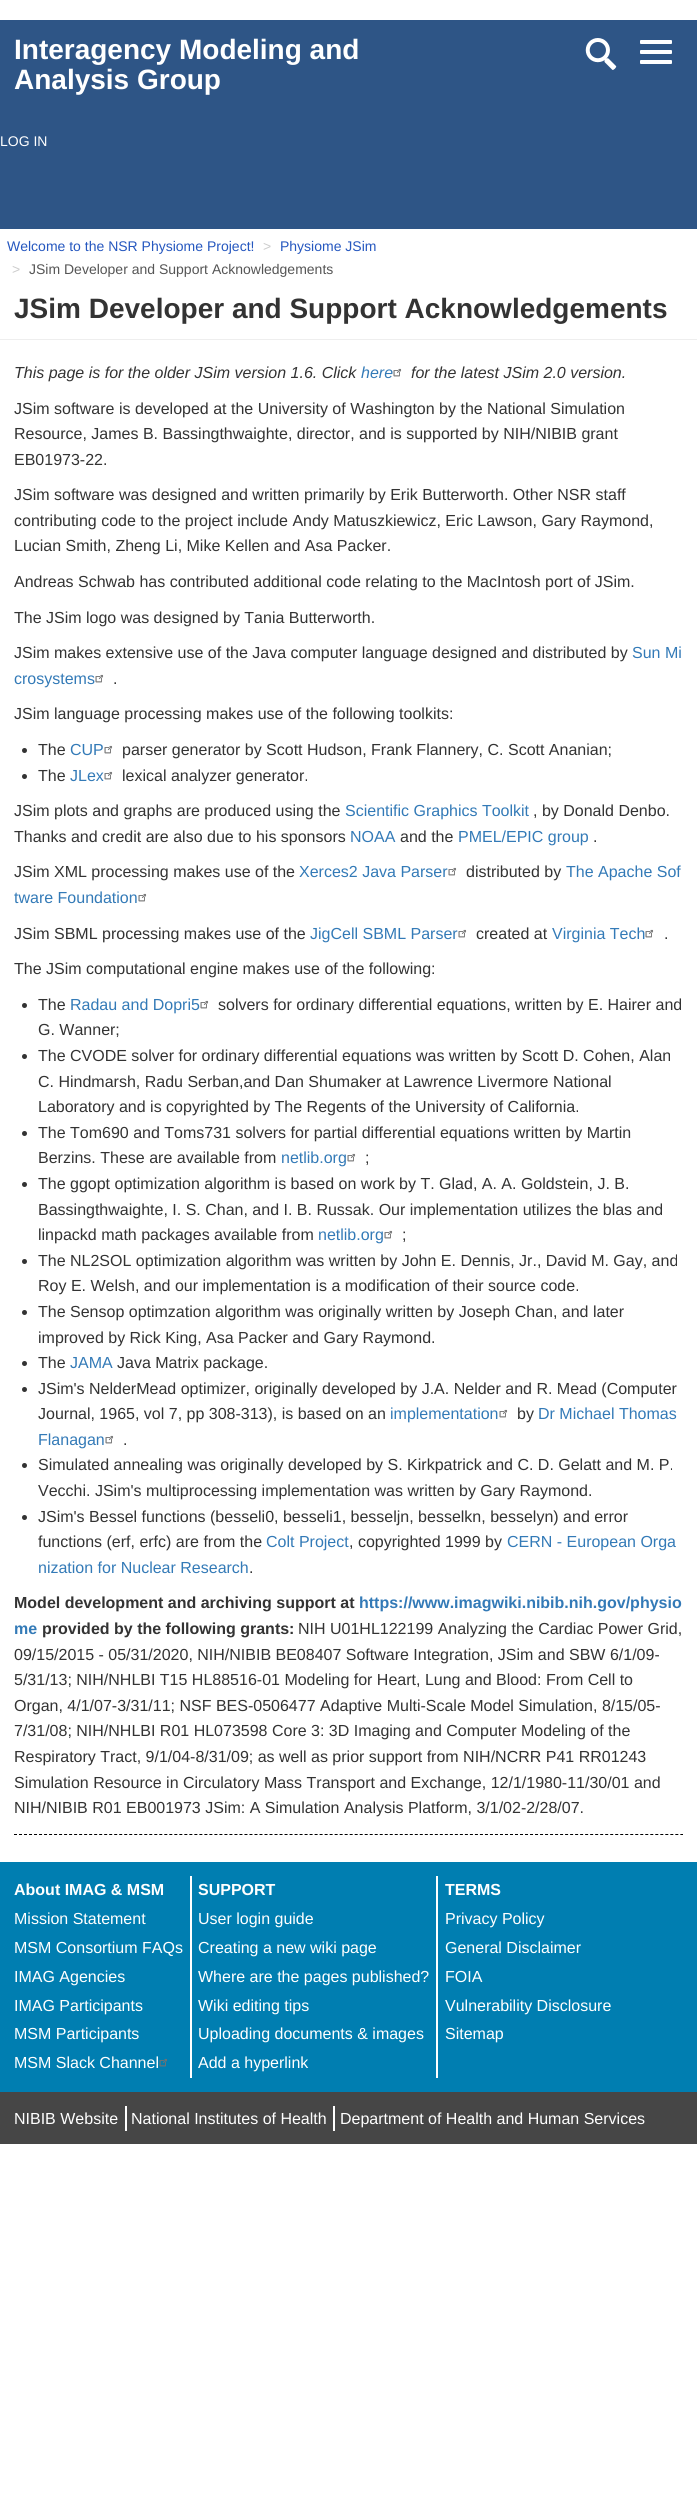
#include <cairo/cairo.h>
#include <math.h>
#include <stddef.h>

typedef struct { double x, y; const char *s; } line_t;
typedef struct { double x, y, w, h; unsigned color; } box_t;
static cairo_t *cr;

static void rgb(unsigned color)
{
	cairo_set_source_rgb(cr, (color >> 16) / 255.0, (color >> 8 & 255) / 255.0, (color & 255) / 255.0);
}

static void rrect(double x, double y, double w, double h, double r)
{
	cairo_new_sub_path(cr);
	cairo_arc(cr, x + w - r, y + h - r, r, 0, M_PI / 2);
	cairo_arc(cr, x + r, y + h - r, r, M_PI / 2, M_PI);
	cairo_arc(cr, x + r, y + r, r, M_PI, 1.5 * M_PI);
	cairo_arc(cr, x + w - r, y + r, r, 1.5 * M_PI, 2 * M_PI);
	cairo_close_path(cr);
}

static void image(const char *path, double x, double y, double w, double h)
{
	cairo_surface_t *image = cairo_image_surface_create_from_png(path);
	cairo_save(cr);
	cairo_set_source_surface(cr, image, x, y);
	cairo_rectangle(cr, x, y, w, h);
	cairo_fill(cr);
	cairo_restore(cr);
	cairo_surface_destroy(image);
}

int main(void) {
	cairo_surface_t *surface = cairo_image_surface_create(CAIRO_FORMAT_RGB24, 697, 2509);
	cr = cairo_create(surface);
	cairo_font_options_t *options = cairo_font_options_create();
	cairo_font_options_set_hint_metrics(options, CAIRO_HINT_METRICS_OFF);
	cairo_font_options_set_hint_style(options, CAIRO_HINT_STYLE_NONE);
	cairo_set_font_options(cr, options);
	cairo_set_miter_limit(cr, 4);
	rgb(0xffffff);
	cairo_paint(cr);
	rgb(0x2e5586);
	cairo_rectangle(cr, 0, 20, 697, 209);
	cairo_fill(cr);
	image("img/1.png", 585, 38, 32, 32);
	rgb(0xffffff);
	rrect(640, 40, 32, 4, 1);
	cairo_fill(cr);
	rrect(640, 50, 32, 4, 1);
	cairo_fill(cr);
	rrect(640, 60, 32, 4, 1);
	cairo_fill(cr);
	rgb(0xeeeeee);
	cairo_rectangle(cr, 0, 339, 697, 1);
	cairo_fill(cr);
	cairo_new_path(cr);
	cairo_move_to(cr, 14, 1834.5);
	cairo_line_to(cr, 683, 1834.5);
	rgb(0x000000);
	cairo_set_line_width(cr, 1);
	cairo_set_dash(cr, (double[]){3, 2.01}, 2, 0);
	cairo_stroke(cr);
	image("img/2.png", 393, 368, 9, 9);
	image("img/2.png", 95, 674, 9, 9);
	rgb(0x333333);
	cairo_arc(cr, 24.5, 750.5, 2.5, 0, 2 * M_PI);
	cairo_fill(cr);
	image("img/2.png", 104, 745, 9, 9);
	cairo_arc(cr, 24.5, 776.5, 2.5, 0, 2 * M_PI);
	cairo_fill(cr);
	image("img/2.png", 104, 771, 9, 9);
	image("img/2.png", 448, 867, 9, 9);
	image("img/2.png", 138, 893, 9, 9);
	image("img/2.png", 458, 929, 9, 9);
	image("img/2.png", 645, 929, 9, 9);
	cairo_arc(cr, 24.5, 1005.5, 2.5, 0, 2 * M_PI);
	cairo_fill(cr);
	image("img/2.png", 200, 1000, 9, 9);
	cairo_arc(cr, 24.5, 1056.5, 2.5, 0, 2 * M_PI);
	cairo_fill(cr);
	cairo_arc(cr, 24.5, 1133.5, 2.5, 0, 2 * M_PI);
	cairo_fill(cr);
	image("img/2.png", 347, 1153, 9, 9);
	cairo_arc(cr, 24.5, 1184.5, 2.5, 0, 2 * M_PI);
	cairo_fill(cr);
	image("img/2.png", 384, 1230, 9, 9);
	cairo_arc(cr, 24.5, 1261.5, 2.5, 0, 2 * M_PI);
	cairo_fill(cr);
	cairo_arc(cr, 24.5, 1312.5, 2.5, 0, 2 * M_PI);
	cairo_fill(cr);
	cairo_arc(cr, 24.5, 1363.5, 2.5, 0, 2 * M_PI);
	cairo_fill(cr);
	cairo_arc(cr, 24.5, 1389.5, 2.5, 0, 2 * M_PI);
	cairo_fill(cr);
	image("img/2.png", 499, 1409, 9, 9);
	image("img/2.png", 105, 1435, 9, 9);
	cairo_arc(cr, 24.5, 1465.5, 2.5, 0, 2 * M_PI);
	cairo_fill(cr);
	cairo_arc(cr, 24.5, 1517.5, 2.5, 0, 2 * M_PI);
	cairo_fill(cr);
	rgb(0x007eb1);
	cairo_rectangle(cr, 0, 1862, 697, 230);
	cairo_fill(cr);
	rgb(0xffffff);
	cairo_rectangle(cr, 190, 1876, 2, 202);
	cairo_fill(cr);
	image("img/3.png", 159, 2058, 9, 9);
	{
		static const box_t items[] = {
			{436, 1876, 2, 202, 0xffffff},
			{0, 2092, 697, 52, 0x464646},
			{125, 2106, 2, 25, 0xffffff},
			{333, 2106, 2, 25, 0xffffff},
		};
		for (size_t i = 0; i < sizeof items / sizeof *items; i++) {
			rgb(items[i].color);
			cairo_rectangle(cr, items[i].x, items[i].y, items[i].w, items[i].h);
			cairo_fill(cr);
		}
	}
	cairo_select_font_face(cr, "Liberation Sans", CAIRO_FONT_SLANT_NORMAL, CAIRO_FONT_WEIGHT_BOLD);
	cairo_set_font_size(cr, 28);
	cairo_move_to(cr, 14, 59);
	cairo_show_text(cr, "Interagency Modeling and");
	cairo_move_to(cr, 14, 89);
	cairo_show_text(cr, "Analysis Group");
	cairo_select_font_face(cr, "Liberation Sans", CAIRO_FONT_SLANT_NORMAL, CAIRO_FONT_WEIGHT_NORMAL);
	cairo_set_font_size(cr, 14);
	cairo_move_to(cr, 0, 146);
	cairo_show_text(cr, "LOG IN");
	rgb(0x2557bf);
	cairo_move_to(cr, 7, 251);
	cairo_show_text(cr, "Welcome to the NSR Physiome Project!");
	rgb(0xcccccc);
	cairo_move_to(cr, 263, 251);
	cairo_show_text(cr, ">");
	rgb(0x2557bf);
	cairo_move_to(cr, 280, 251);
	cairo_show_text(cr, "Physiome JSim");
	rgb(0xcccccc);
	cairo_move_to(cr, 12, 274);
	cairo_show_text(cr, ">");
	rgb(0x555555);
	cairo_move_to(cr, 29, 274);
	cairo_show_text(cr, "JSim Developer and Support Acknowledgements");
	cairo_select_font_face(cr, "Liberation Sans", CAIRO_FONT_SLANT_NORMAL, CAIRO_FONT_WEIGHT_BOLD);
	cairo_set_font_size(cr, 28);
	rgb(0x333333);
	cairo_move_to(cr, 14, 318);
	cairo_show_text(cr, "JSim Developer and Support Acknowledgements");
	cairo_select_font_face(cr, "Liberation Sans", CAIRO_FONT_SLANT_ITALIC, CAIRO_FONT_WEIGHT_NORMAL);
	cairo_set_font_size(cr, 16);
	cairo_move_to(cr, 14, 378);
	cairo_show_text(cr, "This page is for the older JSim version 1.6. Click");
	rgb(0x337ab7);
	cairo_move_to(cr, 361, 378);
	cairo_show_text(cr, "here");
	rgb(0x333333);
	cairo_move_to(cr, 411, 378);
	cairo_show_text(cr, "for the latest JSim 2.0 version.");
	cairo_select_font_face(cr, "Liberation Sans", CAIRO_FONT_SLANT_NORMAL, CAIRO_FONT_WEIGHT_NORMAL);
	{
		static const line_t items[] = {
			{14, 414, "JSim software is developed at the University of Washington by the National Simulation"},
			{14, 439, "Resource, James B. Bassingthwaighte, director, and is supported by NIH/NIBIB grant"},
			{14, 465, "EB01973-22."},
			{14, 500, "JSim software was designed and written primarily by Erik Butterworth. Other NSR staff"},
			{14, 526, "contributing code to the project include Andy Matuszkiewicz, Eric Lawson, Gary Raymond,"},
			{14, 551, "Lucian Smith, Zheng Li, Mike Kellen and Asa Packer."},
			{14, 587, "Andreas Schwab has contributed additional code relating to the MacIntosh port of JSim."},
			{14, 623, "The JSim logo was designed by Tania Butterworth."},
			{14, 658, "JSim makes extensive use of the Java computer language designed and distributed by"},
		};
		for (size_t i = 0; i < sizeof items / sizeof *items; i++) {
			cairo_move_to(cr, items[i].x, items[i].y);
			cairo_show_text(cr, items[i].s);
		}
	}
	rgb(0x337ab7);
	cairo_move_to(cr, 632, 658);
	cairo_show_text(cr, "Sun Mi");
	cairo_move_to(cr, 14, 684);
	cairo_show_text(cr, "crosystems");
	rgb(0x333333);
	{
		static const line_t items[] = {
			{113, 684, "."},
			{14, 719, "JSim language processing makes use of the following toolkits:"},
			{38, 755, "The"},
		};
		for (size_t i = 0; i < sizeof items / sizeof *items; i++) {
			cairo_move_to(cr, items[i].x, items[i].y);
			cairo_show_text(cr, items[i].s);
		}
	}
	rgb(0x337ab7);
	cairo_move_to(cr, 70, 755);
	cairo_show_text(cr, "CUP");
	rgb(0x333333);
	cairo_move_to(cr, 122, 755);
	cairo_show_text(cr, "parser generator by Scott Hudson, Frank Flannery, C. Scott Ananian;");
	cairo_move_to(cr, 38, 781);
	cairo_show_text(cr, "The");
	rgb(0x337ab7);
	cairo_move_to(cr, 70, 781);
	cairo_show_text(cr, "JLex");
	rgb(0x333333);
	cairo_move_to(cr, 122, 781);
	cairo_show_text(cr, "lexical analyzer generator.");
	cairo_move_to(cr, 14, 816);
	cairo_show_text(cr, "JSim plots and graphs are produced using the");
	rgb(0x337ab7);
	cairo_move_to(cr, 345, 816);
	cairo_show_text(cr, "Scientific Graphics Toolkit");
	rgb(0x333333);
	cairo_move_to(cr, 533, 816);
	cairo_show_text(cr, ", by Donald Denbo.");
	cairo_move_to(cr, 14, 842);
	cairo_show_text(cr, "Thanks and credit are also due to his sponsors");
	rgb(0x337ab7);
	cairo_move_to(cr, 350, 842);
	cairo_show_text(cr, "NOAA");
	rgb(0x333333);
	cairo_move_to(cr, 400, 842);
	cairo_show_text(cr, "and the");
	rgb(0x337ab7);
	cairo_move_to(cr, 458, 842);
	cairo_show_text(cr, "PMEL/EPIC group");
	rgb(0x333333);
	cairo_move_to(cr, 593, 842);
	cairo_show_text(cr, ".");
	cairo_move_to(cr, 14, 877);
	cairo_show_text(cr, "JSim XML processing makes use of the");
	rgb(0x337ab7);
	cairo_move_to(cr, 299, 877);
	cairo_show_text(cr, "Xerces2 Java Parser");
	rgb(0x333333);
	cairo_move_to(cr, 466, 877);
	cairo_show_text(cr, "distributed by");
	rgb(0x337ab7);
	cairo_move_to(cr, 566, 877);
	cairo_show_text(cr, "The Apache Sof");
	cairo_move_to(cr, 14, 903);
	cairo_show_text(cr, "tware Foundation");
	rgb(0x333333);
	cairo_move_to(cr, 14, 939);
	cairo_show_text(cr, "JSim SBML processing makes use of the");
	rgb(0x337ab7);
	cairo_move_to(cr, 310, 939);
	cairo_show_text(cr, "JigCell SBML Parser");
	rgb(0x333333);
	cairo_move_to(cr, 476, 939);
	cairo_show_text(cr, "created at");
	rgb(0x337ab7);
	cairo_move_to(cr, 552, 939);
	cairo_show_text(cr, "Virginia Tech");
	rgb(0x333333);
	{
		static const line_t items[] = {
			{664, 939, "."},
			{14, 974, "The JSim computational engine makes use of the following:"},
			{38, 1010, "The"},
		};
		for (size_t i = 0; i < sizeof items / sizeof *items; i++) {
			cairo_move_to(cr, items[i].x, items[i].y);
			cairo_show_text(cr, items[i].s);
		}
	}
	rgb(0x337ab7);
	cairo_move_to(cr, 70, 1010);
	cairo_show_text(cr, "Radau and Dopri5");
	rgb(0x333333);
	{
		static const line_t items[] = {
			{218, 1010, "solvers for ordinary differential equations, written by E. Hairer and"},
			{38, 1035, "G. Wanner;"},
			{38, 1061, "The CVODE solver for ordinary differential equations was written by Scott D. Cohen, Alan"},
			{38, 1087, "C. Hindmarsh, Radu Serban,and Dan Shumaker at Lawrence Livermore National"},
			{38, 1112, "Laboratory and is copyrighted by The Regents of the University of California."},
			{38, 1138, "The Tom690 and Toms731 solvers for partial differential equations written by Martin"},
			{38, 1163, "Berzins. These are available from"},
		};
		for (size_t i = 0; i < sizeof items / sizeof *items; i++) {
			cairo_move_to(cr, items[i].x, items[i].y);
			cairo_show_text(cr, items[i].s);
		}
	}
	rgb(0x337ab7);
	cairo_move_to(cr, 281, 1163);
	cairo_show_text(cr, "netlib.org");
	rgb(0x333333);
	{
		static const line_t items[] = {
			{365, 1163, ";"},
			{38, 1189, "The ggopt optimization algorithm is based on work by T. Glad, A. A. Goldstein, J. B."},
			{38, 1215, "Bassingthwaighte, I. S. Chan, and I. B. Russak. Our implementation utilizes the blas and"},
			{38, 1240, "linpackd math packages available from"},
		};
		for (size_t i = 0; i < sizeof items / sizeof *items; i++) {
			cairo_move_to(cr, items[i].x, items[i].y);
			cairo_show_text(cr, items[i].s);
		}
	}
	rgb(0x337ab7);
	cairo_move_to(cr, 318, 1240);
	cairo_show_text(cr, "netlib.org");
	rgb(0x333333);
	{
		static const line_t items[] = {
			{402, 1240, ";"},
			{38, 1266, "The NL2SOL optimization algorithm was written by John E. Dennis, Jr., David M. Gay, and"},
			{38, 1291, "Roy E. Welsh, and our implementation is a modification of their source code."},
			{38, 1317, "The Sensop optimzation algorithm was originally written by Joseph Chan, and later"},
			{38, 1343, "improved by Rick King, Asa Packer and Gary Raymond."},
			{38, 1368, "The"},
		};
		for (size_t i = 0; i < sizeof items / sizeof *items; i++) {
			cairo_move_to(cr, items[i].x, items[i].y);
			cairo_show_text(cr, items[i].s);
		}
	}
	rgb(0x337ab7);
	cairo_move_to(cr, 70, 1368);
	cairo_show_text(cr, "JAMA");
	rgb(0x333333);
	{
		static const line_t items[] = {
			{117, 1368, "Java Matrix package."},
			{38, 1394, "JSim's NelderMead optimizer, originally developed by J.A. Nelder and R. Mead (Computer"},
			{38, 1419, "Journal, 1965, vol 7, pp 308-313), is based on an"},
		};
		for (size_t i = 0; i < sizeof items / sizeof *items; i++) {
			cairo_move_to(cr, items[i].x, items[i].y);
			cairo_show_text(cr, items[i].s);
		}
	}
	rgb(0x337ab7);
	cairo_move_to(cr, 390, 1419);
	cairo_show_text(cr, "implementation");
	rgb(0x333333);
	cairo_move_to(cr, 517, 1419);
	cairo_show_text(cr, "by");
	rgb(0x337ab7);
	cairo_move_to(cr, 538, 1419);
	cairo_show_text(cr, "Dr Michael Thomas");
	cairo_move_to(cr, 38, 1445);
	cairo_show_text(cr, "Flanagan");
	rgb(0x333333);
	{
		static const line_t items[] = {
			{123, 1445, "."},
			{38, 1470, "Simulated annealing was originally developed by S. Kirkpatrick and C. D. Gelatt and M. P."},
			{38, 1496, "Vecchi. JSim's multiprocessing implementation was written by Gary Raymond."},
			{38, 1522, "JSim's Bessel functions (besseli0, besseli1, besseljn, besselkn, besselyn) and error"},
			{38, 1547, "functions (erf, erfc) are from the"},
		};
		for (size_t i = 0; i < sizeof items / sizeof *items; i++) {
			cairo_move_to(cr, items[i].x, items[i].y);
			cairo_show_text(cr, items[i].s);
		}
	}
	rgb(0x337ab7);
	cairo_move_to(cr, 266, 1547);
	cairo_show_text(cr, "Colt Project");
	rgb(0x333333);
	cairo_move_to(cr, 349, 1547);
	cairo_show_text(cr, ", copyrighted 1999 by");
	rgb(0x337ab7);
	cairo_move_to(cr, 507, 1547);
	cairo_show_text(cr, "CERN - European Orga");
	cairo_move_to(cr, 38, 1573);
	cairo_show_text(cr, "nization for Nuclear Research");
	rgb(0x333333);
	cairo_move_to(cr, 249, 1573);
	cairo_show_text(cr, ".");
	cairo_select_font_face(cr, "Liberation Sans", CAIRO_FONT_SLANT_NORMAL, CAIRO_FONT_WEIGHT_BOLD);
	cairo_move_to(cr, 14, 1608);
	cairo_show_text(cr, "Model development and archiving support at");
	rgb(0x337ab7);
	cairo_move_to(cr, 359, 1608);
	cairo_show_text(cr, "https://www.imagwiki.nibib.nih.gov/physio");
	cairo_move_to(cr, 14, 1634);
	cairo_show_text(cr, "me");
	rgb(0x333333);
	cairo_move_to(cr, 42, 1634);
	cairo_show_text(cr, "provided by the following grants:");
	cairo_select_font_face(cr, "Liberation Sans", CAIRO_FONT_SLANT_NORMAL, CAIRO_FONT_WEIGHT_NORMAL);
	{
		static const line_t items[] = {
			{298, 1634, "NIH U01HL122199 Analyzing the Cardiac Power Grid,"},
			{14, 1660, "09/15/2015 - 05/31/2020, NIH/NIBIB BE08407 Software Integration, JSim and SBW 6/1/09-"},
			{14, 1685, "5/31/13; NIH/NHLBI T15 HL88516-01 Modeling for Heart, Lung and Blood: From Cell to"},
			{14, 1711, "Organ, 4/1/07-3/31/11; NSF BES-0506477 Adaptive Multi-Scale Model Simulation, 8/15/05-"},
			{14, 1736, "7/31/08; NIH/NHLBI R01 HL073598 Core 3: 3D Imaging and Computer Modeling of the"},
			{14, 1762, "Respiratory Tract, 9/1/04-8/31/09; as well as prior support from NIH/NCRR P41 RR01243"},
			{14, 1788, "Simulation Resource in Circulatory Mass Transport and Exchange, 12/1/1980-11/30/01 and"},
			{14, 1813, "NIH/NIBIB R01 EB001973 JSim: A Simulation Analysis Platform, 3/1/02-2/28/07."},
		};
		for (size_t i = 0; i < sizeof items / sizeof *items; i++) {
			cairo_move_to(cr, items[i].x, items[i].y);
			cairo_show_text(cr, items[i].s);
		}
	}
	cairo_select_font_face(cr, "Liberation Sans", CAIRO_FONT_SLANT_NORMAL, CAIRO_FONT_WEIGHT_BOLD);
	rgb(0xffffff);
	cairo_move_to(cr, 14, 1895);
	cairo_show_text(cr, "About IMAG & MSM");
	cairo_select_font_face(cr, "Liberation Sans", CAIRO_FONT_SLANT_NORMAL, CAIRO_FONT_WEIGHT_NORMAL);
	{
		static const line_t items[] = {
			{14, 1924, "Mission Statement"},
			{14, 1953, "MSM Consortium FAQs"},
			{14, 1982, "IMAG Agencies"},
			{14, 2011, "IMAG Participants"},
			{14, 2039, "MSM Participants"},
			{14, 2068, "MSM Slack Channel"},
		};
		for (size_t i = 0; i < sizeof items / sizeof *items; i++) {
			cairo_move_to(cr, items[i].x, items[i].y);
			cairo_show_text(cr, items[i].s);
		}
	}
	cairo_select_font_face(cr, "Liberation Sans", CAIRO_FONT_SLANT_NORMAL, CAIRO_FONT_WEIGHT_BOLD);
	cairo_move_to(cr, 198, 1895);
	cairo_show_text(cr, "SUPPORT");
	cairo_select_font_face(cr, "Liberation Sans", CAIRO_FONT_SLANT_NORMAL, CAIRO_FONT_WEIGHT_NORMAL);
	{
		static const line_t items[] = {
			{198, 1924, "User login guide"},
			{198, 1953, "Creating a new wiki page"},
			{198, 1982, "Where are the pages published?"},
			{198, 2011, "Wiki editing tips"},
			{198, 2039, "Uploading documents & images"},
			{198, 2068, "Add a hyperlink"},
		};
		for (size_t i = 0; i < sizeof items / sizeof *items; i++) {
			cairo_move_to(cr, items[i].x, items[i].y);
			cairo_show_text(cr, items[i].s);
		}
	}
	cairo_select_font_face(cr, "Liberation Sans", CAIRO_FONT_SLANT_NORMAL, CAIRO_FONT_WEIGHT_BOLD);
	cairo_move_to(cr, 445, 1895);
	cairo_show_text(cr, "TERMS");
	cairo_select_font_face(cr, "Liberation Sans", CAIRO_FONT_SLANT_NORMAL, CAIRO_FONT_WEIGHT_NORMAL);
	{
		static const line_t items[] = {
			{445, 1924, "Privacy Policy"},
			{445, 1953, "General Disclaimer"},
			{445, 1982, "FOIA"},
			{445, 2011, "Vulnerability Disclosure"},
			{445, 2039, "Sitemap"},
			{14, 2124, "NIBIB Website"},
			{131, 2124, "National Institutes of Health"},
			{340, 2124, "Department of Health and Human Services"},
		};
		for (size_t i = 0; i < sizeof items / sizeof *items; i++) {
			cairo_move_to(cr, items[i].x, items[i].y);
			cairo_show_text(cr, items[i].s);
		}
	}
	cairo_surface_write_to_png(surface, "page.png");
	cairo_font_options_destroy(options);
	cairo_destroy(cr);
	cairo_surface_destroy(surface);
	return 0;
}
